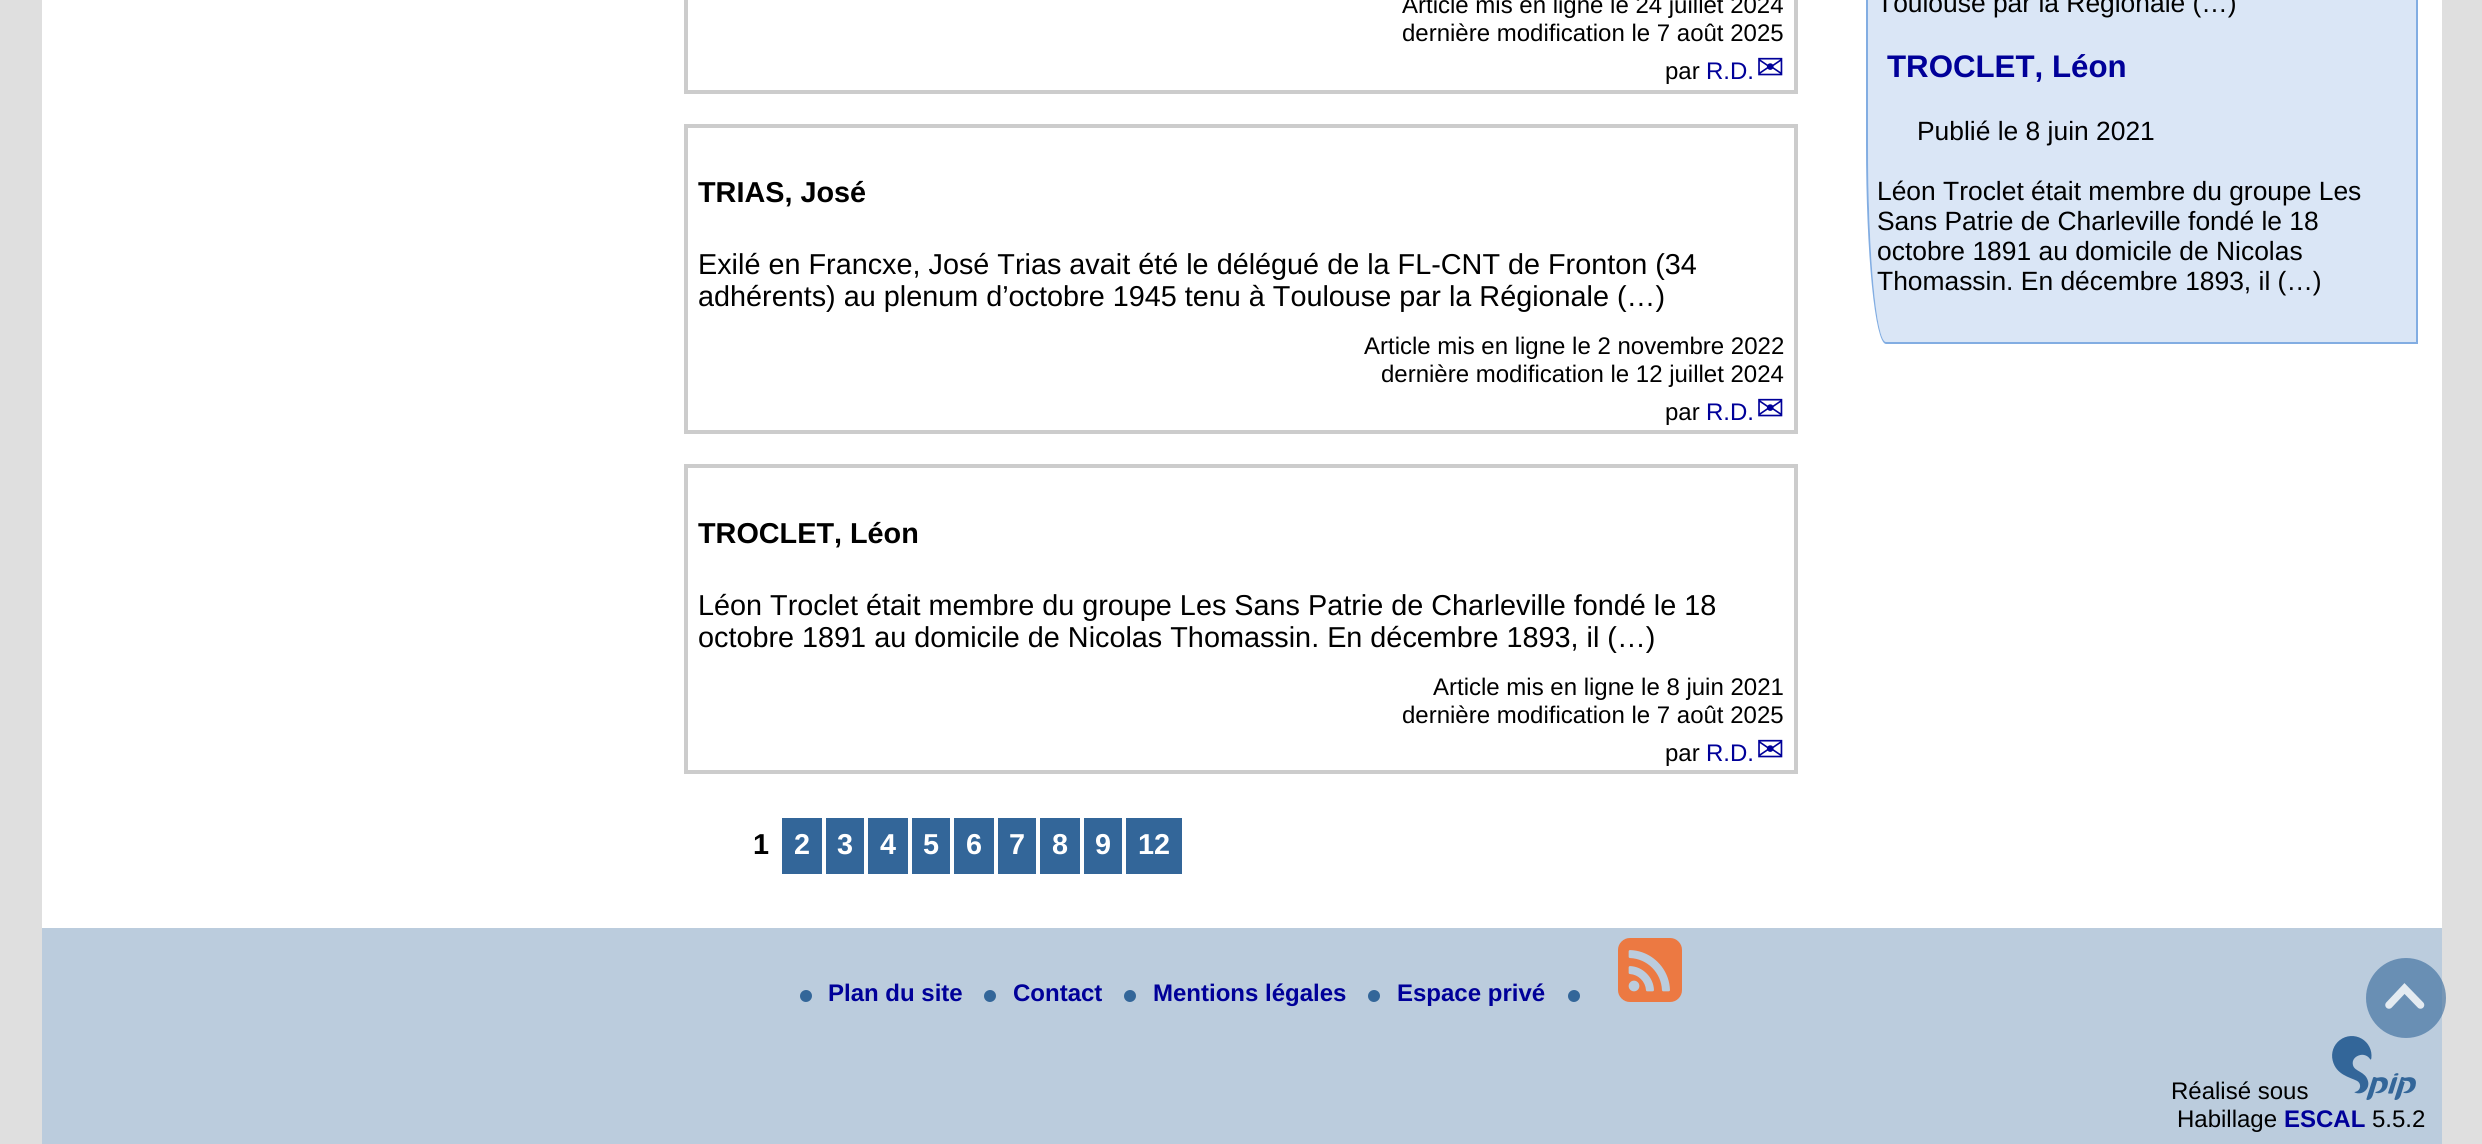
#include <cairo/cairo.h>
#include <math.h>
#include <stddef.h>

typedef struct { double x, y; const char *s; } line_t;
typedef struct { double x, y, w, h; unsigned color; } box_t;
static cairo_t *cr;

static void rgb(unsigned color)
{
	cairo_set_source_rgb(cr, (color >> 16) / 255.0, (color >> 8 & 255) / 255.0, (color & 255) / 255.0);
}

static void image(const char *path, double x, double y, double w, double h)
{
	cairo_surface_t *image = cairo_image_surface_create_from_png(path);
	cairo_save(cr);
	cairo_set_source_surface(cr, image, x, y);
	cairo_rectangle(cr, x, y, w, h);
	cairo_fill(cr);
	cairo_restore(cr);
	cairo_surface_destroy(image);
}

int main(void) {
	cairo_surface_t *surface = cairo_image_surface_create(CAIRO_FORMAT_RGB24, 2482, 1144);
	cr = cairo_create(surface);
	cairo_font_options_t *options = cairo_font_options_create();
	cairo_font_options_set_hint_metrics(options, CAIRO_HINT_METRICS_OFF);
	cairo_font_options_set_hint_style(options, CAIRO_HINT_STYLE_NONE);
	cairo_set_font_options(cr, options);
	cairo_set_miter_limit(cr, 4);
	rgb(0xdfdfdf);
	cairo_paint(cr);
	rgb(0xffffff);
	cairo_rectangle(cr, 42, 0, 2400, 928);
	cairo_fill(cr);
	cairo_rectangle(cr, 686, -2, 1110, 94);
	rgb(0xcccccc);
	cairo_set_line_width(cr, 4);
	cairo_stroke(cr);
	cairo_rectangle(cr, 686, 126, 1110, 306);
	cairo_stroke(cr);
	cairo_rectangle(cr, 686, 466, 1110, 306);
	cairo_stroke(cr);
	{
		static const box_t items[] = {
			{782, 818, 40, 56, 0x336699},
			{826, 818, 38, 56, 0x336699},
			{868, 818, 40, 56, 0x336699},
			{912, 818, 38, 56, 0x336699},
			{954, 818, 40, 56, 0x336699},
			{998, 818, 38, 56, 0x336699},
			{1040, 818, 40, 56, 0x336699},
			{1084, 818, 38, 56, 0x336699},
			{1126, 818, 56, 56, 0x336699},
		};
		for (size_t i = 0; i < sizeof items / sizeof *items; i++) {
			rgb(items[i].color);
			cairo_rectangle(cr, items[i].x, items[i].y, items[i].w, items[i].h);
			cairo_fill(cr);
		}
	}
	rgb(0xdae6f6);
	cairo_new_path(cr);
	cairo_move_to(cr, 1868, -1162);
	cairo_line_to(cr, 2416, -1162);
	cairo_line_to(cr, 2416, 342);
	cairo_line_to(cr, 1886, 342);
	cairo_curve_to(cr, 1876, 342, 1868, 253, 1868, 144);
	cairo_close_path(cr);
	cairo_fill(cr);
	rgb(0x82ade2);
	cairo_set_fill_rule(cr, CAIRO_FILL_RULE_EVEN_ODD);
	cairo_new_path(cr);
	cairo_move_to(cr, 1866, -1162);
	cairo_line_to(cr, 2418, -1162);
	cairo_line_to(cr, 2418, 344);
	cairo_line_to(cr, 1886, 344);
	cairo_curve_to(cr, 1875, 344, 1866, 254, 1866, 144);
	cairo_close_path(cr);
	cairo_move_to(cr, 1868, -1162);
	cairo_line_to(cr, 2416, -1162);
	cairo_line_to(cr, 2416, 342);
	cairo_line_to(cr, 1886, 342);
	cairo_curve_to(cr, 1876, 342, 1868, 253, 1868, 144);
	cairo_close_path(cr);
	cairo_fill(cr);
	rgb(0xbbccdd);
	cairo_rectangle(cr, 42, 928, 2400, 216);
	cairo_fill(cr);
	image("img/1.png", 800, 990, 12, 12);
	image("img/1.png", 984, 990, 12, 12);
	image("img/1.png", 1124, 990, 12, 12);
	image("img/1.png", 1368, 990, 12, 12);
	image("img/1.png", 1568, 990, 12, 12);
	image("img/2.png", 1618, 938, 64, 64);
	image("img/3.png", 2332, 1036, 84, 64);
	cairo_set_source_rgba(cr, 0.2, 0.4, 0.6, 0.6);
	cairo_arc(cr, 2406, 998, 40, 0, 2 * M_PI);
	cairo_fill(cr);
	cairo_new_path(cr);
	cairo_move_to(cr, 2389, 1005);
	cairo_line_to(cr, 2404.5, 988.5);
	cairo_line_to(cr, 2420.5, 1005);
	rgb(0xe4ebf1);
	cairo_set_line_width(cr, 7.5);
	cairo_set_line_cap(cr, CAIRO_LINE_CAP_ROUND);
	cairo_stroke(cr);
	cairo_select_font_face(cr, "Liberation Sans", CAIRO_FONT_SLANT_NORMAL, CAIRO_FONT_WEIGHT_NORMAL);
	cairo_set_font_size(cr, 24);
	rgb(0x000000);
	{
		static const line_t items[] = {
			{1402, 13, "Article mis en ligne le 24 juillet 2024"},
			{1402, 41, "dernière modification le 7 août 2025"},
			{1665, 79, "par"},
		};
		for (size_t i = 0; i < sizeof items / sizeof *items; i++) {
			cairo_move_to(cr, items[i].x, items[i].y);
			cairo_show_text(cr, items[i].s);
		}
	}
	rgb(0x000099);
	cairo_move_to(cr, 1706, 79);
	cairo_show_text(cr, "R.D.");
	cairo_select_font_face(cr, "DejaVu Sans", CAIRO_FONT_SLANT_NORMAL, CAIRO_FONT_WEIGHT_NORMAL);
	cairo_set_font_size(cr, 34);
	cairo_move_to(cr, 1756, 79);
	cairo_show_text(cr, "✉");
	cairo_select_font_face(cr, "Liberation Sans", CAIRO_FONT_SLANT_NORMAL, CAIRO_FONT_WEIGHT_BOLD);
	cairo_set_font_size(cr, 28.8);
	rgb(0x000000);
	cairo_move_to(cr, 698, 202);
	cairo_show_text(cr, "TRIAS, José");
	cairo_select_font_face(cr, "Liberation Sans", CAIRO_FONT_SLANT_NORMAL, CAIRO_FONT_WEIGHT_NORMAL);
	cairo_move_to(cr, 698, 274);
	cairo_show_text(cr, "Exilé en Francxe, José Trias avait été le délégué de la FL-CNT de Fronton (34");
	cairo_move_to(cr, 698, 306);
	cairo_show_text(cr, "adhérents) au plenum d’octobre 1945 tenu à Toulouse par la Régionale (…)");
	cairo_set_font_size(cr, 24);
	{
		static const line_t items[] = {
			{1364, 354, "Article mis en ligne le 2 novembre 2022"},
			{1381, 382, "dernière modification le 12 juillet 2024"},
			{1665, 420, "par"},
		};
		for (size_t i = 0; i < sizeof items / sizeof *items; i++) {
			cairo_move_to(cr, items[i].x, items[i].y);
			cairo_show_text(cr, items[i].s);
		}
	}
	rgb(0x000099);
	cairo_move_to(cr, 1706, 420);
	cairo_show_text(cr, "R.D.");
	cairo_select_font_face(cr, "DejaVu Sans", CAIRO_FONT_SLANT_NORMAL, CAIRO_FONT_WEIGHT_NORMAL);
	cairo_set_font_size(cr, 34);
	cairo_move_to(cr, 1756, 420);
	cairo_show_text(cr, "✉");
	cairo_select_font_face(cr, "Liberation Sans", CAIRO_FONT_SLANT_NORMAL, CAIRO_FONT_WEIGHT_BOLD);
	cairo_set_font_size(cr, 28.8);
	rgb(0x000000);
	cairo_move_to(cr, 698, 543);
	cairo_show_text(cr, "TROCLET, Léon");
	cairo_select_font_face(cr, "Liberation Sans", CAIRO_FONT_SLANT_NORMAL, CAIRO_FONT_WEIGHT_NORMAL);
	cairo_move_to(cr, 698, 615);
	cairo_show_text(cr, "Léon Troclet était membre du groupe Les Sans Patrie de Charleville fondé le 18");
	cairo_move_to(cr, 698, 647);
	cairo_show_text(cr, "octobre 1891 au domicile de Nicolas Thomassin. En décembre 1893, il (…)");
	cairo_set_font_size(cr, 24);
	{
		static const line_t items[] = {
			{1433, 695, "Article mis en ligne le 8 juin 2021"},
			{1402, 723, "dernière modification le 7 août 2025"},
			{1665, 761, "par"},
		};
		for (size_t i = 0; i < sizeof items / sizeof *items; i++) {
			cairo_move_to(cr, items[i].x, items[i].y);
			cairo_show_text(cr, items[i].s);
		}
	}
	rgb(0x000099);
	cairo_move_to(cr, 1706, 761);
	cairo_show_text(cr, "R.D.");
	cairo_select_font_face(cr, "DejaVu Sans", CAIRO_FONT_SLANT_NORMAL, CAIRO_FONT_WEIGHT_NORMAL);
	cairo_set_font_size(cr, 34);
	cairo_move_to(cr, 1756, 761);
	cairo_show_text(cr, "✉");
	cairo_select_font_face(cr, "Liberation Sans", CAIRO_FONT_SLANT_NORMAL, CAIRO_FONT_WEIGHT_BOLD);
	cairo_set_font_size(cr, 28.8);
	rgb(0x000000);
	cairo_move_to(cr, 753, 854);
	cairo_show_text(cr, "1");
	rgb(0xffffff);
	{
		static const line_t items[] = {
			{794, 854, "2"},
			{837, 854, "3"},
			{880, 854, "4"},
			{923, 854, "5"},
			{966, 854, "6"},
			{1009, 854, "7"},
			{1052, 854, "8"},
			{1095, 854, "9"},
			{1138, 854, "12"},
		};
		for (size_t i = 0; i < sizeof items / sizeof *items; i++) {
			cairo_move_to(cr, items[i].x, items[i].y);
			cairo_show_text(cr, items[i].s);
		}
	}
	cairo_select_font_face(cr, "Liberation Sans", CAIRO_FONT_SLANT_NORMAL, CAIRO_FONT_WEIGHT_NORMAL);
	cairo_set_font_size(cr, 26.4);
	rgb(0x000000);
	cairo_move_to(cr, 1877, 12);
	cairo_show_text(cr, "Toulouse par la Régionale (…)");
	cairo_select_font_face(cr, "Liberation Sans", CAIRO_FONT_SLANT_NORMAL, CAIRO_FONT_WEIGHT_BOLD);
	cairo_set_font_size(cr, 31.25);
	rgb(0x000099);
	cairo_move_to(cr, 1887, 77);
	cairo_show_text(cr, "TROCLET, Léon");
	cairo_select_font_face(cr, "Liberation Sans", CAIRO_FONT_SLANT_NORMAL, CAIRO_FONT_WEIGHT_NORMAL);
	cairo_set_font_size(cr, 26.4);
	rgb(0x000000);
	{
		static const line_t items[] = {
			{1917, 140, "Publié le 8 juin 2021"},
			{1877, 200, "Léon Troclet était membre du groupe Les"},
			{1877, 230, "Sans Patrie de Charleville fondé le 18"},
			{1877, 260, "octobre 1891 au domicile de Nicolas"},
			{1877, 290, "Thomassin. En décembre 1893, il (…)"},
		};
		for (size_t i = 0; i < sizeof items / sizeof *items; i++) {
			cairo_move_to(cr, items[i].x, items[i].y);
			cairo_show_text(cr, items[i].s);
		}
	}
	cairo_select_font_face(cr, "Liberation Sans", CAIRO_FONT_SLANT_NORMAL, CAIRO_FONT_WEIGHT_BOLD);
	cairo_set_font_size(cr, 24);
	rgb(0x000099);
	{
		static const line_t items[] = {
			{828, 1001, "Plan du site"},
			{1013, 1001, "Contact"},
			{1153, 1001, "Mentions légales"},
			{1397, 1001, "Espace privé"},
		};
		for (size_t i = 0; i < sizeof items / sizeof *items; i++) {
			cairo_move_to(cr, items[i].x, items[i].y);
			cairo_show_text(cr, items[i].s);
		}
	}
	cairo_select_font_face(cr, "Liberation Sans", CAIRO_FONT_SLANT_NORMAL, CAIRO_FONT_WEIGHT_NORMAL);
	rgb(0x000000);
	cairo_move_to(cr, 2171, 1099);
	cairo_show_text(cr, "Réalisé sous");
	cairo_move_to(cr, 2177, 1127);
	cairo_show_text(cr, "Habillage");
	cairo_select_font_face(cr, "Liberation Sans", CAIRO_FONT_SLANT_NORMAL, CAIRO_FONT_WEIGHT_BOLD);
	rgb(0x000099);
	cairo_move_to(cr, 2284, 1127);
	cairo_show_text(cr, "ESCAL");
	cairo_select_font_face(cr, "Liberation Sans", CAIRO_FONT_SLANT_NORMAL, CAIRO_FONT_WEIGHT_NORMAL);
	rgb(0x000000);
	cairo_move_to(cr, 2372, 1127);
	cairo_show_text(cr, "5.5.2");
	cairo_surface_write_to_png(surface, "page.png");
	cairo_font_options_destroy(options);
	cairo_destroy(cr);
	cairo_surface_destroy(surface);
	return 0;
}
